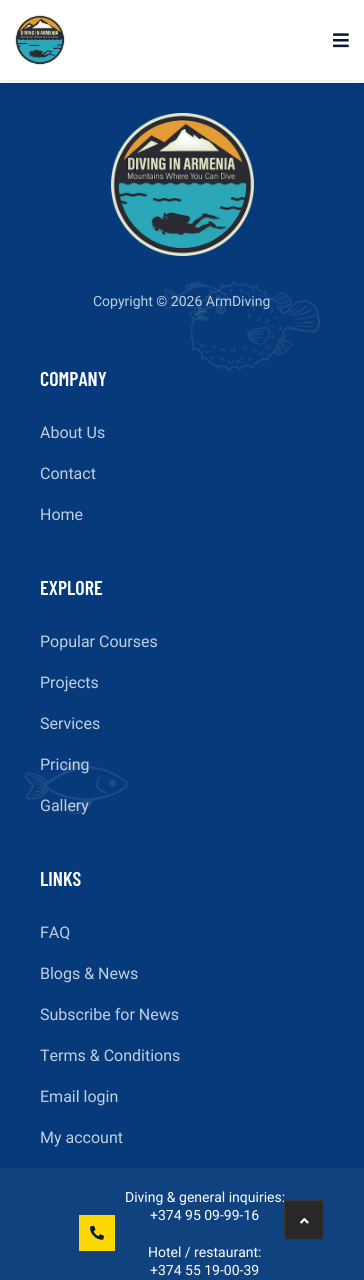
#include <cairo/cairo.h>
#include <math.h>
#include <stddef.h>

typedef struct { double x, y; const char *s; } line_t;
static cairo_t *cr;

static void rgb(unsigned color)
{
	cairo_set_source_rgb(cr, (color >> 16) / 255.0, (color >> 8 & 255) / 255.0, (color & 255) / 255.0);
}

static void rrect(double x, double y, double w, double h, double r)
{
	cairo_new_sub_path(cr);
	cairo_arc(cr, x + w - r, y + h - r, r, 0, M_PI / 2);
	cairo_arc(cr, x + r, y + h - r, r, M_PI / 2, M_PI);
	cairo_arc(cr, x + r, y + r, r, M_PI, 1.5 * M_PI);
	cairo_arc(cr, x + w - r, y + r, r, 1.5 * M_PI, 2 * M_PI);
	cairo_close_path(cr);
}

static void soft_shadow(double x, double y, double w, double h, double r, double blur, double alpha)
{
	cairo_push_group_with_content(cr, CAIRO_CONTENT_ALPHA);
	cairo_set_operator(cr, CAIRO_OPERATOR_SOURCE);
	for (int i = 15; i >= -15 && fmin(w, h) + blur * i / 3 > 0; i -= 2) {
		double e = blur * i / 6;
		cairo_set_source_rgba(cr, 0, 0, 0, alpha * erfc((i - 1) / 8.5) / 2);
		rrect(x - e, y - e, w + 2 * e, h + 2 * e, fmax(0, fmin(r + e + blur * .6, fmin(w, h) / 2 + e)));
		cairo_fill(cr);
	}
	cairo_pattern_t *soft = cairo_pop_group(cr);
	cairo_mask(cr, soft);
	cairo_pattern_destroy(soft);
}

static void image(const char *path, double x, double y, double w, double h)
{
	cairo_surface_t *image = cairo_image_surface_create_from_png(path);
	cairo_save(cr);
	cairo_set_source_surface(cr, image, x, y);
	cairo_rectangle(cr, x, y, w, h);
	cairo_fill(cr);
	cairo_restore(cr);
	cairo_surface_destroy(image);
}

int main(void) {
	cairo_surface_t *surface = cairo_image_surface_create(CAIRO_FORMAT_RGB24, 364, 1280);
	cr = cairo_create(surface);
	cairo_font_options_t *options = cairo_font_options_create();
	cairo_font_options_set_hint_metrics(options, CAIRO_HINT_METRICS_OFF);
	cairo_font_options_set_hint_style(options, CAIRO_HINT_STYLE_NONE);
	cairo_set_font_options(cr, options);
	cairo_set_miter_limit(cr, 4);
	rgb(0xffffff);
	cairo_paint(cr);
	rgb(0x063a7a);
	cairo_rectangle(cr, 0, 83, 364, 1085);
	cairo_fill(cr);
	rgb(0x000000);
	soft_shadow(0, 6, 364, 80, 0, 6.5, 0.06);
	rgb(0xffffff);
	cairo_rectangle(cr, 0, 0, 364, 80);
	cairo_fill(cr);
	image("img/1.png", 15, 15, 50, 50);
	image("img/2.png", 333, 33, 16, 15);
	image("img/3.png", 111, 113, 143, 143);
	rgb(0x10427f);
	cairo_rectangle(cr, 0, 1168, 364, 112);
	cairo_fill(cr);
	rgb(0xffd701);
	cairo_rectangle(cr, 79, 1215, 36, 36);
	cairo_fill(cr);
	image("img/7.png", 90, 1225, 14, 15);
	cairo_select_font_face(cr, "Roboto", CAIRO_FONT_SLANT_NORMAL, CAIRO_FONT_WEIGHT_NORMAL);
	cairo_set_font_size(cr, 14);
	rgb(0xc1cfe1);
	cairo_move_to(cr, 93, 306);
	cairo_show_text(cr, "Copyright © 2026 ArmDiving");
	cairo_select_font_face(cr, "Barlow Condensed SemiBold", CAIRO_FONT_SLANT_NORMAL, CAIRO_FONT_WEIGHT_NORMAL);
	cairo_set_font_size(cr, 20);
	rgb(0xffffff);
	cairo_move_to(cr, 40, 386);
	cairo_show_text(cr, "COMPANY");
	cairo_select_font_face(cr, "Roboto", CAIRO_FONT_SLANT_NORMAL, CAIRO_FONT_WEIGHT_NORMAL);
	cairo_set_font_size(cr, 16);
	rgb(0xc1cfe1);
	{
		static const line_t items[] = {
			{40, 438, "About Us"},
			{40, 479, "Contact"},
			{40, 520, "Home"},
		};
		for (size_t i = 0; i < sizeof items / sizeof *items; i++) {
			cairo_move_to(cr, items[i].x, items[i].y);
			cairo_show_text(cr, items[i].s);
		}
	}
	cairo_select_font_face(cr, "Barlow Condensed SemiBold", CAIRO_FONT_SLANT_NORMAL, CAIRO_FONT_WEIGHT_NORMAL);
	cairo_set_font_size(cr, 20);
	rgb(0xffffff);
	cairo_move_to(cr, 40, 595);
	cairo_show_text(cr, "EXPLORE");
	cairo_select_font_face(cr, "Roboto", CAIRO_FONT_SLANT_NORMAL, CAIRO_FONT_WEIGHT_NORMAL);
	cairo_set_font_size(cr, 16);
	rgb(0xc1cfe1);
	{
		static const line_t items[] = {
			{40, 647, "Popular Courses"},
			{40, 688, "Projects"},
			{40, 729, "Services"},
			{40, 770, "Pricing"},
			{40, 811, "Gallery"},
		};
		for (size_t i = 0; i < sizeof items / sizeof *items; i++) {
			cairo_move_to(cr, items[i].x, items[i].y);
			cairo_show_text(cr, items[i].s);
		}
	}
	cairo_select_font_face(cr, "Barlow Condensed SemiBold", CAIRO_FONT_SLANT_NORMAL, CAIRO_FONT_WEIGHT_NORMAL);
	cairo_set_font_size(cr, 20);
	rgb(0xffffff);
	cairo_move_to(cr, 40, 886);
	cairo_show_text(cr, "LINKS");
	cairo_select_font_face(cr, "Roboto", CAIRO_FONT_SLANT_NORMAL, CAIRO_FONT_WEIGHT_NORMAL);
	cairo_set_font_size(cr, 16);
	rgb(0xc1cfe1);
	{
		static const line_t items[] = {
			{40, 938, "FAQ"},
			{40, 979, "Blogs & News"},
			{40, 1020, "Subscribe for News"},
			{40, 1061, "Terms & Conditions"},
			{40, 1102, "Email login"},
			{40, 1143, "My account"},
		};
		for (size_t i = 0; i < sizeof items / sizeof *items; i++) {
			cairo_move_to(cr, items[i].x, items[i].y);
			cairo_show_text(cr, items[i].s);
		}
	}
	image("img/4.png", 164, 282, 64, 37);
	image("img/5.png", 191, 282, 129, 89);
	image("img/6.png", 25, 762, 103, 52);
	cairo_set_font_size(cr, 14);
	rgb(0xffffff);
	{
		static const line_t items[] = {
			{125, 1202, "Diving & general inquiries:"},
			{150, 1220, "+374 95 09-99-16"},
			{148, 1257, "Hotel / restaurant:"},
			{150, 1275, "+374 55 19-00-39"},
		};
		for (size_t i = 0; i < sizeof items / sizeof *items; i++) {
			cairo_move_to(cr, items[i].x, items[i].y);
			cairo_show_text(cr, items[i].s);
		}
	}
	rgb(0x292728);
	cairo_rectangle(cr, 284.5, 1200.5, 39, 39);
	cairo_fill_preserve(cr);
	rgb(0x393838);
	cairo_set_line_width(cr, 1);
	cairo_stroke(cr);
	image("img/8.png", 300, 1218, 9, 6);
	cairo_surface_write_to_png(surface, "page.png");
	cairo_font_options_destroy(options);
	cairo_destroy(cr);
	cairo_surface_destroy(surface);
	return 0;
}
